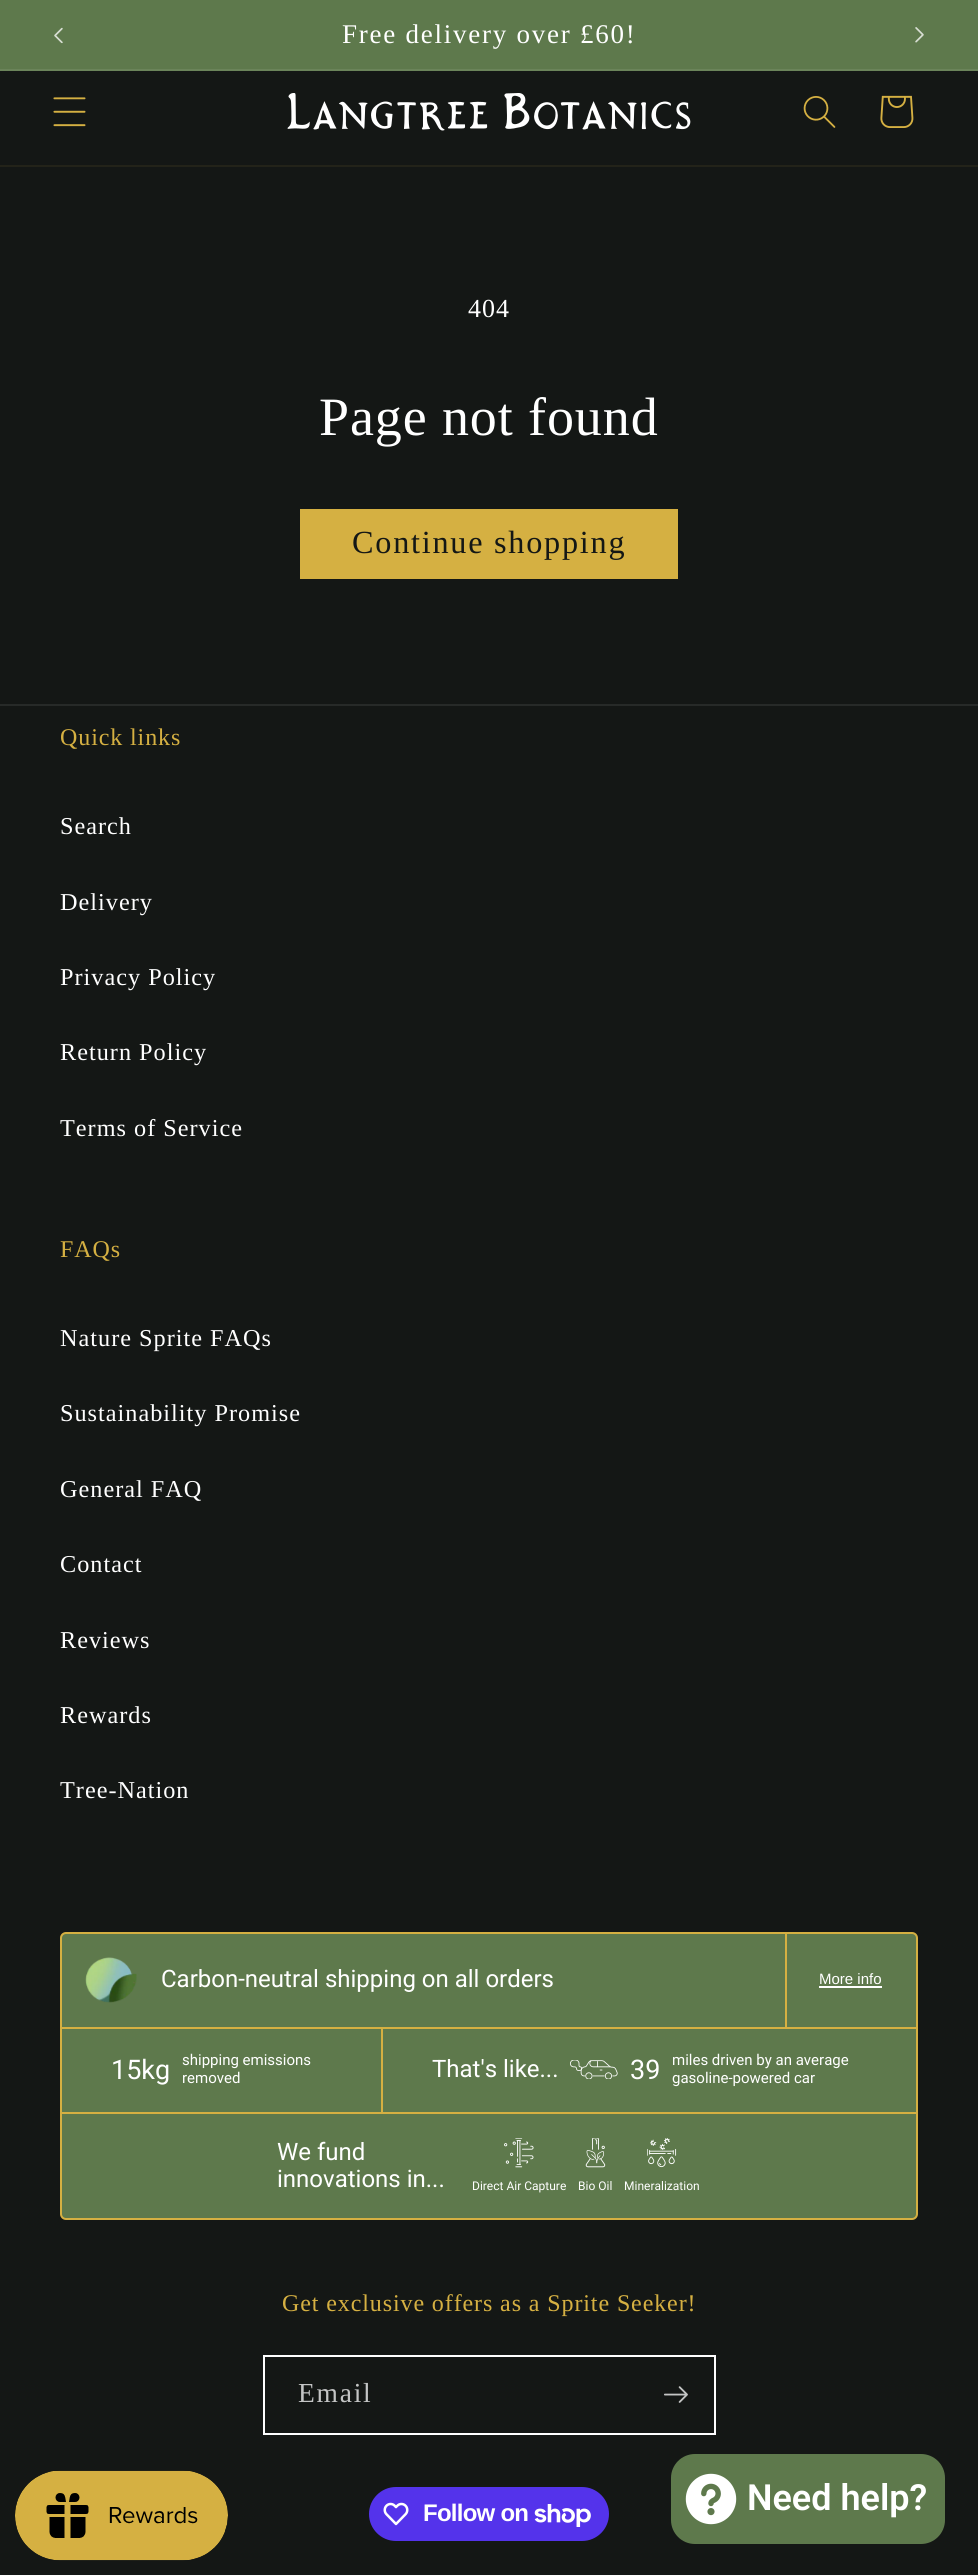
#include <cairo/cairo.h>
#include <math.h>
#include <stddef.h>

typedef struct { double x, y; const char *s; } line_t;
typedef struct { double x, y, w, h; unsigned color; } box_t;
static cairo_t *cr;

static void rgb(unsigned color)
{
	cairo_set_source_rgb(cr, (color >> 16) / 255.0, (color >> 8 & 255) / 255.0, (color & 255) / 255.0);
}

static void tracked(double x, double y, const char *s, double letter, double word)
{
	cairo_move_to(cr, x, y);
	while (*s) {
		char ch[5] = {0};
		int n = 0;
		do ch[n++] = *s++; while ((*s & 0xC0) == 0x80);
		cairo_show_text(cr, ch);
		cairo_rel_move_to(cr, letter + word * (*ch == ' '), 0);
	}
}

static void rrect(double x, double y, double w, double h, double r)
{
	cairo_new_sub_path(cr);
	cairo_arc(cr, x + w - r, y + h - r, r, 0, M_PI / 2);
	cairo_arc(cr, x + r, y + h - r, r, M_PI / 2, M_PI);
	cairo_arc(cr, x + r, y + r, r, M_PI, 1.5 * M_PI);
	cairo_arc(cr, x + w - r, y + r, r, 1.5 * M_PI, 2 * M_PI);
	cairo_close_path(cr);
}

static void image(const char *path, double x, double y, double w, double h)
{
	cairo_surface_t *image = cairo_image_surface_create_from_png(path);
	cairo_save(cr);
	cairo_set_source_surface(cr, image, x, y);
	cairo_rectangle(cr, x, y, w, h);
	cairo_fill(cr);
	cairo_restore(cr);
	cairo_surface_destroy(image);
}

int main(void) {
	cairo_surface_t *surface = cairo_image_surface_create(CAIRO_FORMAT_RGB24, 978, 2575);
	cr = cairo_create(surface);
	cairo_font_options_t *options = cairo_font_options_create();
	cairo_font_options_set_hint_metrics(options, CAIRO_HINT_METRICS_OFF);
	cairo_font_options_set_hint_style(options, CAIRO_HINT_STYLE_NONE);
	cairo_set_font_options(cr, options);
	cairo_set_miter_limit(cr, 4);
	rgb(0x141715);
	cairo_paint(cr);
	rgb(0x5e794c);
	cairo_rectangle(cr, 0, 0, 978, 69);
	cairo_fill(cr);
	rgb(0x6b845a);
	cairo_rectangle(cr, 0, 69, 978, 2);
	cairo_fill(cr);
	image("img/1.png", 54, 27, 9, 17);
	image("img/2.png", 915, 27, 9, 16);
	rgb(0x232319);
	cairo_rectangle(cr, 0, 165, 978, 2);
	cairo_fill(cr);
	image("img/3.png", 53, 97, 33, 30);
	image("img/4.png", 287, 93, 404, 38);
	image("img/5.png", 803, 96, 33, 32);
	image("img/6.png", 880, 95, 34, 33);
	rgb(0xd5b042);
	cairo_rectangle(cr, 300, 509, 378, 70);
	cairo_fill(cr);
	rgb(0x272a28);
	cairo_rectangle(cr, 0, 704, 978, 2);
	cairo_fill(cr);
	rgb(0x5e794c);
	rrect(61, 1933, 856, 286, 5);
	cairo_fill_preserve(cr);
	rgb(0xd5b042);
	cairo_stroke(cr);
	cairo_rectangle(cr, 785, 1934, 2, 94);
	cairo_fill(cr);
	cairo_rectangle(cr, 62, 2027, 855, 2);
	cairo_fill(cr);
	image("img/7.png", 85, 1957, 52, 46);
	{
		static const box_t items[] = {
			{819, 1986, 63, 2, 0xffffff},
			{381, 2028, 2, 86, 0xd5b042},
			{62, 2112, 855, 2, 0xd5b042},
		};
		for (size_t i = 0; i < sizeof items / sizeof *items; i++) {
			rgb(items[i].color);
			cairo_rectangle(cr, items[i].x, items[i].y, items[i].w, items[i].h);
			cairo_fill(cr);
		}
	}
	image("img/8.png", 570, 2060, 48, 19);
	image("img/9.png", 504, 2138, 30, 30);
	image("img/10.png", 585, 2138, 21, 30);
	image("img/11.png", 647, 2138, 30, 30);
	cairo_rectangle(cr, 264, 2356, 451, 78);
	rgb(0xffffff);
	cairo_stroke(cr);
	image("img/12.png", 664, 2386, 24, 17);
	rgb(0x5433eb);
	rrect(369, 2487, 240, 54, 27);
	cairo_fill(cr);
	image("img/13.png", 383, 2502, 26, 24);
	image("img/14.png", 534, 2504, 57, 23);
	image("img/15.png", 15, 2470, 213, 91);
	rgb(0x5e794c);
	rrect(671, 2454, 274, 90, 24);
	cairo_fill(cr);
	image("img/16.png", 685, 2473, 52, 52);
	cairo_select_font_face(cr, "Liberation Serif", CAIRO_FONT_SLANT_NORMAL, CAIRO_FONT_WEIGHT_NORMAL);
	cairo_set_font_size(cr, 27);
	rgb(0xffffff);
	tracked(342, 43, "Free delivery over £60!", 1.75, 0);
	cairo_set_font_size(cr, 26);
	tracked(468, 317, "404", 1, 0);
	cairo_set_font_size(cr, 54);
	tracked(319, 435, "Page not found", 0.9, 0);
	cairo_set_font_size(cr, 32.25);
	rgb(0x141715);
	tracked(352, 553, "Continue shopping", 1.75, 0);
	cairo_set_font_size(cr, 24);
	rgb(0xd5b042);
	tracked(60, 745, "Quick links", 0.9, 0);
	cairo_set_font_size(cr, 24.25);
	rgb(0xffffff);
	{
		static const line_t items[] = {
			{60, 834, "Search"},
			{60, 910, "Delivery"},
			{60, 985, "Privacy Policy"},
			{60, 1060, "Return Policy"},
			{60, 1136, "Terms of Service"},
		};
		for (size_t i = 0; i < sizeof items / sizeof *items; i++) {
			tracked(items[i].x, items[i].y, items[i].s, 1, 0);
		}
	}
	cairo_set_font_size(cr, 24);
	rgb(0xd5b042);
	tracked(60, 1257, "FAQs", 0.9, 0);
	cairo_set_font_size(cr, 24.25);
	rgb(0xffffff);
	{
		static const line_t items[] = {
			{60, 1346, "Nature Sprite FAQs"},
			{60, 1421, "Sustainability Promise"},
			{60, 1497, "General FAQ"},
			{60, 1572, "Contact"},
			{60, 1648, "Reviews"},
			{60, 1723, "Rewards"},
			{60, 1798, "Tree-Nation"},
		};
		for (size_t i = 0; i < sizeof items / sizeof *items; i++) {
			tracked(items[i].x, items[i].y, items[i].s, 1, 0);
		}
	}
	cairo_select_font_face(cr, "Roboto", CAIRO_FONT_SLANT_NORMAL, CAIRO_FONT_WEIGHT_NORMAL);
	cairo_set_font_size(cr, 24);
	cairo_move_to(cr, 161, 1987);
	cairo_show_text(cr, "Carbon-neutral shipping on all orders");
	cairo_select_font_face(cr, "Liberation Sans", CAIRO_FONT_SLANT_NORMAL, CAIRO_FONT_WEIGHT_NORMAL);
	cairo_set_font_size(cr, 15);
	cairo_move_to(cr, 819, 1984);
	cairo_show_text(cr, "More info");
	cairo_select_font_face(cr, "Roboto", CAIRO_FONT_SLANT_NORMAL, CAIRO_FONT_WEIGHT_NORMAL);
	cairo_set_font_size(cr, 27);
	cairo_move_to(cr, 111, 2079);
	cairo_show_text(cr, "15kg");
	cairo_set_font_size(cr, 15);
	cairo_move_to(cr, 182, 2065);
	cairo_show_text(cr, "shipping emissions");
	cairo_move_to(cr, 182, 2083);
	cairo_show_text(cr, "removed");
	cairo_set_font_size(cr, 24);
	cairo_move_to(cr, 432, 2077);
	cairo_show_text(cr, "That's like...");
	cairo_set_font_size(cr, 27);
	cairo_move_to(cr, 630, 2079);
	cairo_show_text(cr, "39");
	cairo_set_font_size(cr, 15);
	cairo_move_to(cr, 672, 2065);
	cairo_show_text(cr, "miles driven by an average");
	cairo_move_to(cr, 672, 2083);
	cairo_show_text(cr, "gasoline-powered car");
	cairo_set_font_size(cr, 24);
	cairo_move_to(cr, 277, 2160);
	cairo_show_text(cr, "We fund");
	cairo_move_to(cr, 277, 2187);
	cairo_show_text(cr, "innovations in...");
	cairo_set_font_size(cr, 12);
	{
		static const line_t items[] = {
			{472, 2190, "Direct Air Capture"},
			{578, 2190, "Bio Oil"},
			{624, 2190, "Mineralization"},
		};
		for (size_t i = 0; i < sizeof items / sizeof *items; i++) {
			cairo_move_to(cr, items[i].x, items[i].y);
			cairo_show_text(cr, items[i].s);
		}
	}
	cairo_select_font_face(cr, "Liberation Serif", CAIRO_FONT_SLANT_NORMAL, CAIRO_FONT_WEIGHT_NORMAL);
	cairo_set_font_size(cr, 24);
	rgb(0xd5b042);
	tracked(282, 2311, "Get exclusive offers as a Sprite Seeker!", 0.9, 0);
	cairo_set_font_size(cr, 27.5);
	rgb(0xc4c5c5);
	tracked(298, 2402, "Email", 1.75, 0);
	cairo_select_font_face(cr, "Liberation Sans", CAIRO_FONT_SLANT_NORMAL, CAIRO_FONT_WEIGHT_BOLD);
	cairo_set_font_size(cr, 24);
	rgb(0xffffff);
	tracked(423, 2521, "Follow on", -0.75, 0);
	cairo_select_font_face(cr, "Roboto SemiBold", CAIRO_FONT_SLANT_NORMAL, CAIRO_FONT_WEIGHT_NORMAL);
	cairo_set_font_size(cr, 36);
	cairo_move_to(cr, 747, 2510);
	cairo_show_text(cr, "Need help?");
	cairo_surface_write_to_png(surface, "page.png");
	cairo_font_options_destroy(options);
	cairo_destroy(cr);
	cairo_surface_destroy(surface);
	return 0;
}
